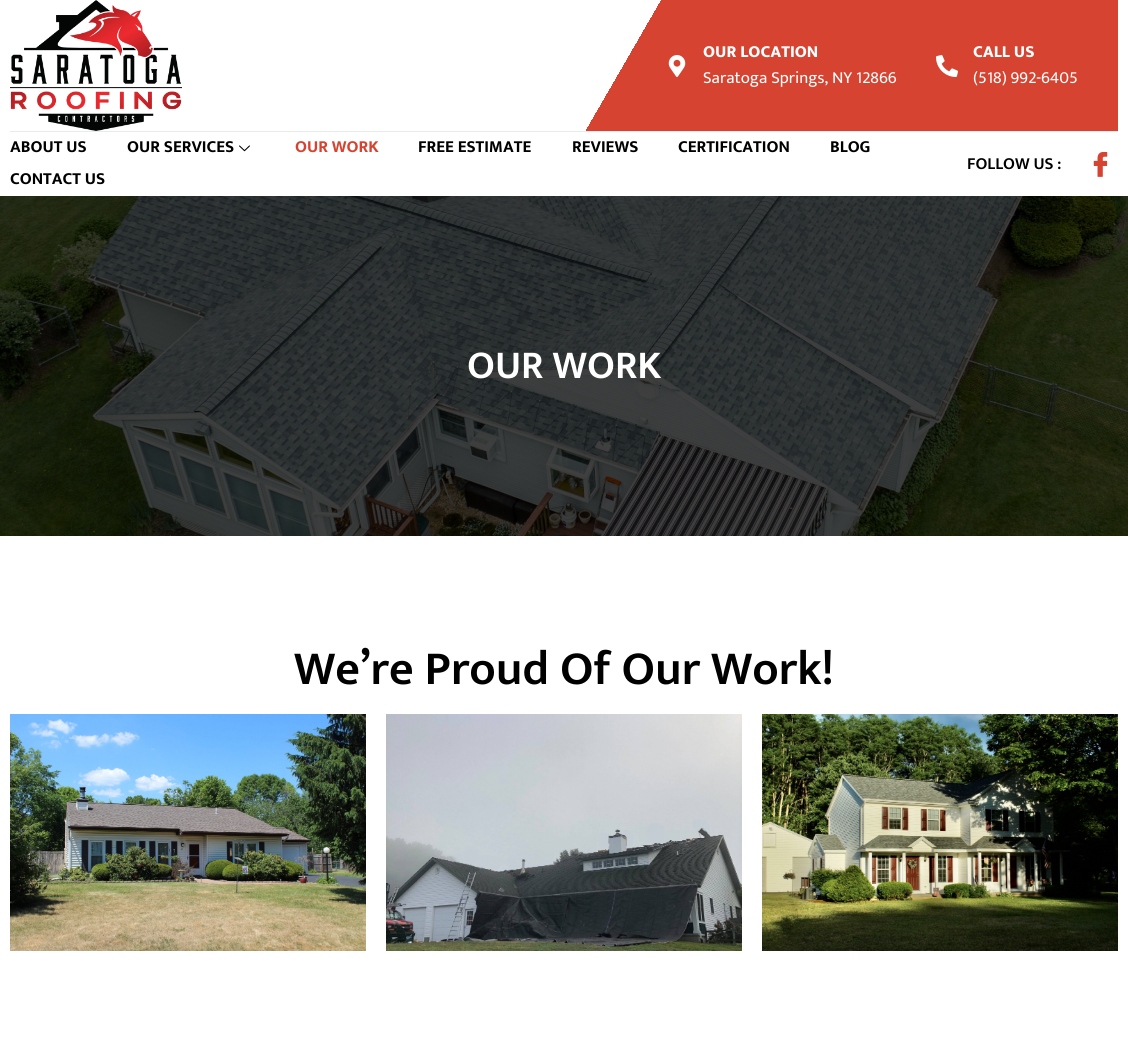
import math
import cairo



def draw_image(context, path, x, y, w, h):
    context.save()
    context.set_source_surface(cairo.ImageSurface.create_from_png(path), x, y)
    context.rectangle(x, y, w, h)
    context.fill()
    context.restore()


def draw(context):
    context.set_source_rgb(1, 1, 1)
    context.paint()
    gradient = cairo.LinearGradient(1008, 322, 120, -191)
    gradient.add_color_stop_rgba(0.45, 214 / 255, 67 / 255, 48 / 255, 1)
    gradient.add_color_stop_rgba(0.45, 1, 1, 1, 1)
    context.set_source(gradient)
    context.rectangle(586, 0, 532, 131)
    context.fill()
    draw_image(context, "images/1.png", 10, 0, 172, 131)
    draw_image(context, "images/2.png", 668, 55, 18, 22)
    draw_image(context, "images/3.png", 936, 55, 22, 22)
    context.set_source_rgb(231 / 255, 235 / 255, 240 / 255)
    context.rectangle(10, 131, 1108, 1)
    context.fill()
    draw_image(context, "images/4.png", 239, 145, 11, 7)
    draw_image(context, "images/5.png", 1093, 152, 15, 25)
    draw_image(context, "images/6.png", 0, 196, 1128, 340)
    draw_image(context, "images/7.png", 10, 714, 356, 237)
    draw_image(context, "images/8.png", 386, 714, 356, 237)
    draw_image(context, "images/9.png", 762, 714, 356, 237)
    context.select_font_face("Mukta ExtraBold")
    context.set_font_size(17)
    context.set_source_rgb(1, 1, 1)
    context.move_to(703, 57)
    context.show_text("OUR LOCATION")
    context.select_font_face("Mukta")
    context.move_to(703, 83)
    context.show_text("Saratoga Springs, NY 12866")
    context.select_font_face("Mukta ExtraBold")
    context.move_to(973, 57)
    context.show_text("CALL US")
    context.select_font_face("Mukta")
    context.move_to(973, 83)
    context.show_text("(518) 992-6405")
    context.select_font_face("Mukta", cairo.FontSlant.NORMAL, cairo.FontWeight.BOLD)
    context.set_source_rgb(0, 0, 0)
    context.move_to(10, 152)
    context.show_text("ABOUT US")
    context.move_to(127, 152)
    context.show_text("OUR SERVICES")
    context.set_source_rgb(214 / 255, 67 / 255, 48 / 255)
    context.move_to(295, 152)
    context.show_text("OUR WORK")
    context.set_source_rgb(0, 0, 0)
    context.move_to(418, 152)
    context.show_text("FREE ESTIMATE")
    context.move_to(572, 152)
    context.show_text("REVIEWS")
    context.move_to(678, 152)
    context.show_text("CERTIFICATION")
    context.move_to(830, 152)
    context.show_text("BLOG")
    context.move_to(10, 184)
    context.show_text("CONTACT US")
    context.select_font_face("Mukta SemiBold")
    context.move_to(967, 169)
    context.show_text("FOLLOW US :")
    context.set_font_size(40)
    context.set_source_rgb(1, 1, 1)
    context.move_to(467, 378)
    context.show_text("OUR WORK")
    context.set_font_size(48)
    context.set_source_rgb(0, 0, 0)
    context.move_to(294, 684)
    context.show_text("We’re Proud Of Our Work!")


surface = cairo.ImageSurface(cairo.Format.RGB24, 1128, 1040)
context = cairo.Context(surface)
options = cairo.FontOptions()
options.set_hint_metrics(cairo.HintMetrics.OFF)
options.set_hint_style(cairo.HintStyle.NONE)
context.set_font_options(options)
context.set_miter_limit(4)
draw(context)
surface.write_to_png("out.png")
